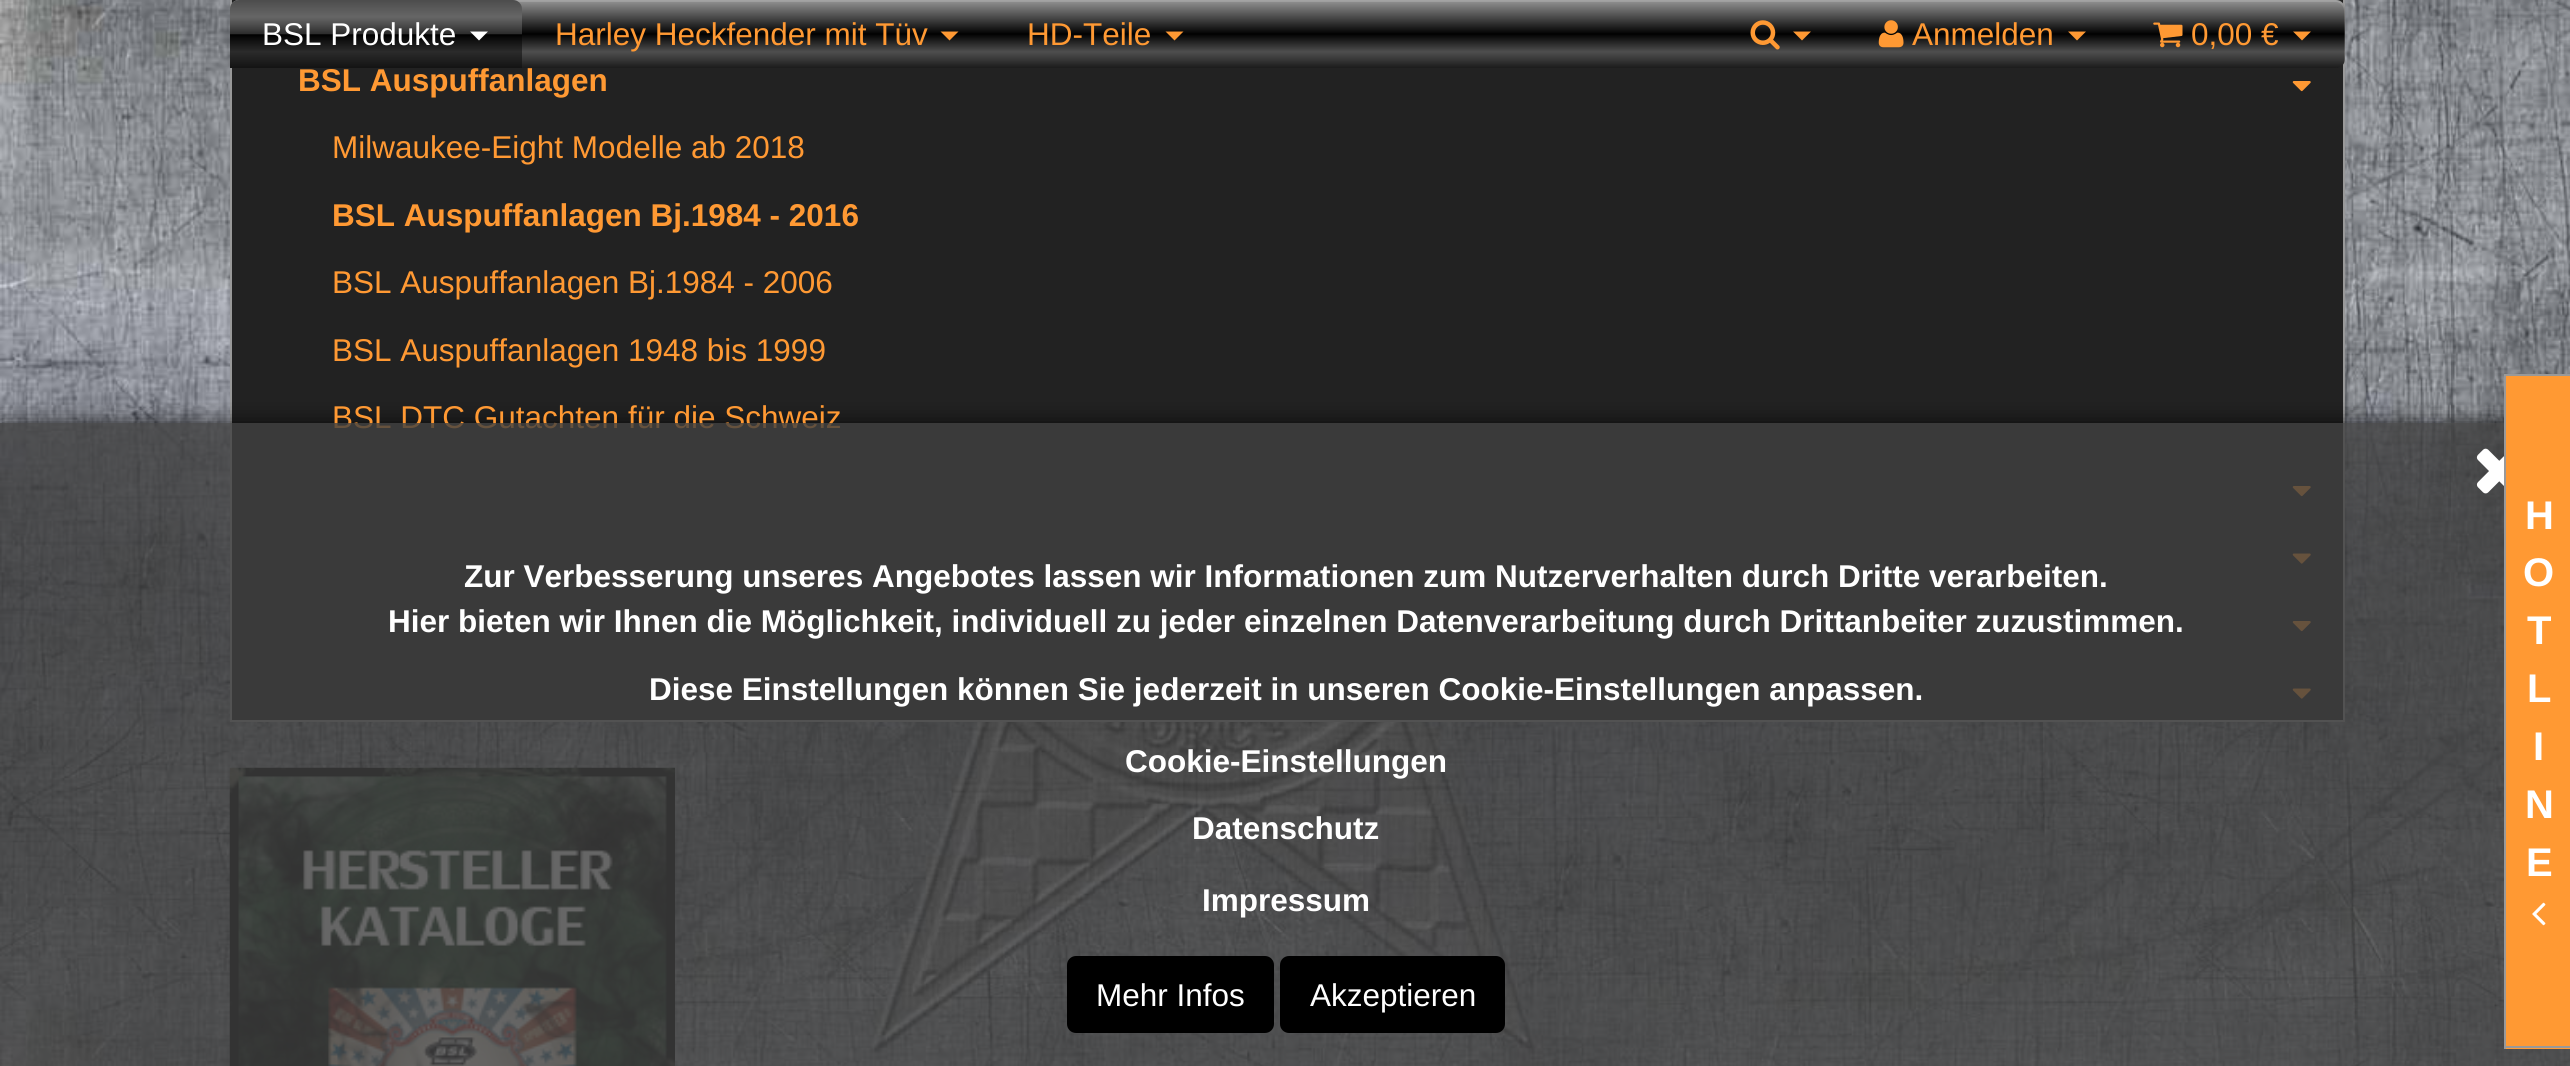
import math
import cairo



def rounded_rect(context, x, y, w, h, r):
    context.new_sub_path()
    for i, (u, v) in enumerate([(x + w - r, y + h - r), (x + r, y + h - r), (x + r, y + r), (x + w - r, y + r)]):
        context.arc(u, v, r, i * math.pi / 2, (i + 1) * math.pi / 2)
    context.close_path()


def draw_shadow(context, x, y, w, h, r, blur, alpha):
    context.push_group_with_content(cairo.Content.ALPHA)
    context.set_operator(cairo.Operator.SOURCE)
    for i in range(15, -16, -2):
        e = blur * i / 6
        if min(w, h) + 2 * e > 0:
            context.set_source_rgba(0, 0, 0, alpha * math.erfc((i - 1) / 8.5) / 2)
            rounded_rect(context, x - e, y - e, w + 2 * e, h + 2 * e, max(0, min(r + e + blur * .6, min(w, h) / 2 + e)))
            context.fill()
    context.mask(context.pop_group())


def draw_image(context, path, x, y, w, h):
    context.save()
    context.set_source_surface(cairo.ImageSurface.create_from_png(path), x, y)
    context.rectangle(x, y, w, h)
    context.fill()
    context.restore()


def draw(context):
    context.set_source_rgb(1, 1, 1)
    context.paint()
    draw_image(context, "images/1.png", 0, 0, 2570, 1066)
    context.set_source_rgb(0, 0, 0)
    draw_shadow(context, 230, -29, 2115, 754, 23, 2, 0.05)
    context.set_source_rgb(34 / 255, 34 / 255, 34 / 255)
    context.rectangle(231, -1, 2113, 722)
    context.fill_preserve()
    context.set_source_rgb(153 / 255, 153 / 255, 153 / 255)
    context.stroke()
    gradient = cairo.LinearGradient(1287, 0, 1287, 68)
    gradient.add_color_stop_rgba(0, 149 / 255, 149 / 255, 149 / 255, 1)
    gradient.add_color_stop_rgba(0.46, 13 / 255, 13 / 255, 13 / 255, 1)
    gradient.add_color_stop_rgba(0.5, 1 / 255, 1 / 255, 1 / 255, 1)
    gradient.add_color_stop_rgba(0.53, 10 / 255, 10 / 255, 10 / 255, 1)
    gradient.add_color_stop_rgba(0.76, 78 / 255, 78 / 255, 78 / 255, 1)
    gradient.add_color_stop_rgba(0.87, 56 / 255, 56 / 255, 56 / 255, 1)
    gradient.add_color_stop_rgba(1, 27 / 255, 27 / 255, 27 / 255, 1)
    context.set_source(gradient)
    rounded_rect(context, 230, 0, 2115, 68, 9)
    context.fill()
    context.set_source_rgba(1, 1, 1, 0.15)
    context.new_path()
    context.move_to(238, 2)
    context.line_to(2336, 2)
    context.curve_to(2340, 2, 2344, 6, 2344, 11)
    context.line_to(2344, 61)
    context.line_to(2344, 64)
    context.curve_to(2344, 63, 2345, 61, 2345, 59)
    context.line_to(2345, 9)
    context.curve_to(2345, 4, 2341, 0, 2336, 0)
    context.line_to(239, 0)
    context.curve_to(234, 0, 230, 4, 230, 9)
    context.line_to(230, 11)
    context.curve_to(230, 6, 234, 2, 238, 2)
    context.close_path()
    context.fill()
    gradient = cairo.LinearGradient(376, 0, 376, 68)
    gradient.add_color_stop_rgba(0, 76 / 255, 76 / 255, 76 / 255, 1)
    gradient.add_color_stop_rgba(0.12, 89 / 255, 89 / 255, 89 / 255, 1)
    gradient.add_color_stop_rgba(0.25, 102 / 255, 102 / 255, 102 / 255, 1)
    gradient.add_color_stop_rgba(0.39, 71 / 255, 71 / 255, 71 / 255, 1)
    gradient.add_color_stop_rgba(0.5, 44 / 255, 44 / 255, 44 / 255, 1)
    gradient.add_color_stop_rgba(0.51, 0, 0, 0, 1)
    gradient.add_color_stop_rgba(0.6, 17 / 255, 17 / 255, 17 / 255, 1)
    gradient.add_color_stop_rgba(0.76, 43 / 255, 43 / 255, 43 / 255, 1)
    gradient.add_color_stop_rgba(0.91, 28 / 255, 28 / 255, 28 / 255, 1)
    gradient.add_color_stop_rgba(1, 19 / 255, 19 / 255, 19 / 255, 1)
    context.set_source(gradient)
    context.new_path()
    context.move_to(239, 0)
    context.line_to(513, 0)
    context.curve_to(518, 0, 522, 4, 522, 9)
    context.line_to(522, 68)
    context.line_to(230, 68)
    context.line_to(230, 9)
    context.curve_to(230, 4, 234, 0, 239, 0)
    context.close_path()
    context.fill()
    context.set_source_rgb(1, 1, 1)
    context.new_path()
    context.move_to(470, 31.5)
    context.line_to(488, 31.5)
    context.line_to(479, 40.5)
    context.close_path()
    context.fill()
    context.set_source_rgb(1, 153 / 255, 51 / 255)
    context.new_path()
    context.move_to(940.5, 31.5)
    context.line_to(958.5, 31.5)
    context.line_to(949.5, 40.5)
    context.close_path()
    context.fill()
    context.new_path()
    context.move_to(1165.5, 31.5)
    context.line_to(1183.5, 31.5)
    context.line_to(1174.5, 40.5)
    context.close_path()
    context.fill()
    draw_image(context, "images/2.png", 1750, 20, 30, 30)
    context.new_path()
    context.move_to(1793, 31.5)
    context.line_to(1811, 31.5)
    context.line_to(1802, 40.5)
    context.close_path()
    context.fill()
    draw_image(context, "images/3.png", 1878, 20, 26, 28)
    context.new_path()
    context.move_to(2068, 31.5)
    context.line_to(2086, 31.5)
    context.line_to(2077, 40.5)
    context.close_path()
    context.fill()
    draw_image(context, "images/4.png", 2153, 22, 30, 26)
    context.new_path()
    context.move_to(2293, 31.5)
    context.line_to(2311, 31.5)
    context.line_to(2302, 40.5)
    context.close_path()
    context.fill()
    context.set_source_rgb(153 / 255, 153 / 255, 153 / 255)
    context.rectangle(2504, 374, 66, 2)
    context.fill()
    draw_image(context, "images/6.png", 2292, 81, 19, 11)
    draw_image(context, "images/6.png", 2292, 486, 19, 11)
    draw_image(context, "images/7.png", 2292, 553, 19, 11)
    draw_image(context, "images/6.png", 2292, 621, 19, 11)
    draw_image(context, "images/7.png", 2292, 688, 19, 11)
    draw_image(context, "images/8.png", 229, 767, 446, 299)
    context.save()
    context.rectangle(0, 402, 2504, 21)
    context.clip()
    context.set_source_rgb(0, 0, 0)
    draw_shadow(context, 0, 423, 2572, 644, 0, 11, 0.75)
    context.restore()
    context.select_font_face("Liberation Sans")
    context.set_font_size(31.5)
    context.set_source_rgb(1, 1, 1)
    context.move_to(262, 45)
    context.show_text("BSL Produkte")
    context.set_source_rgb(1, 153 / 255, 51 / 255)
    context.move_to(555, 45)
    context.show_text("Harley Heckfender mit Tüv")
    context.move_to(1027, 45)
    context.show_text("HD-Teile")
    context.move_to(1912, 45)
    context.show_text("Anmelden")
    context.move_to(2191, 45)
    context.show_text("0,00 €")
    context.select_font_face("Liberation Sans", cairo.FontSlant.NORMAL, cairo.FontWeight.BOLD)
    context.move_to(298, 91)
    context.show_text("BSL Auspuffanlagen")
    context.select_font_face("Liberation Sans")
    context.move_to(332, 158)
    context.show_text("Milwaukee-Eight Modelle ab 2018")
    context.select_font_face("Liberation Sans", cairo.FontSlant.NORMAL, cairo.FontWeight.BOLD)
    context.move_to(332, 226)
    context.show_text("BSL Auspuffanlagen Bj.1984 - 2016")
    context.select_font_face("Liberation Sans")
    context.move_to(332, 293)
    context.show_text("BSL Auspuffanlagen Bj.1984 - 2006")
    context.move_to(332, 361)
    context.show_text("BSL Auspuffanlagen 1948 bis 1999")
    context.move_to(332, 428)
    context.show_text("BSL DTC Gutachten für die Schweiz")
    context.set_source_rgba(64 / 255, 64 / 255, 64 / 255, 0.8)
    context.rectangle(0, 423, 2570, 643)
    context.fill()
    context.set_source_rgb(1, 153 / 255, 51 / 255)
    context.rectangle(2506, 376, 64, 673)
    context.fill()
    draw_image(context, "images/5.png", 2532, 902, 14, 24)
    context.select_font_face("Liberation Sans", cairo.FontSlant.NORMAL, cairo.FontWeight.BOLD)
    context.set_font_size(40)
    context.set_source_rgb(1, 1, 1)
    context.move_to(2526, 876)
    context.show_text("E")
    context.move_to(2525, 818)
    context.show_text("N")
    context.move_to(2533, 760)
    context.show_text("I")
    context.move_to(2527, 702)
    context.show_text("L")
    context.move_to(2527, 644)
    context.show_text("T")
    context.move_to(2523, 586)
    context.show_text("O")
    context.move_to(2525, 529)
    context.show_text("H")
    context.set_source_rgb(153 / 255, 153 / 255, 153 / 255)
    context.rectangle(2504, 1046, 66, 2)
    context.fill()
    context.rectangle(2504, 374, 2, 675)
    context.fill()
    draw_image(context, "images/9.png", 2476, 448, 28, 46)
    context.set_font_size(31.5)
    context.set_source_rgb(1, 1, 1)
    context.move_to(464, 587)
    context.show_text("Zur Verbesserung unseres Angebotes lassen wir Informationen zum Nutzerverhalten durch Dritte verarbeiten.")
    context.move_to(388, 632)
    context.show_text("Hier bieten wir Ihnen die Möglichkeit, individuell zu jeder einzelnen Datenverarbeitung durch Drittanbeiter zuzustimmen.")
    context.move_to(649, 700)
    context.show_text("Diese Einstellungen können Sie jederzeit in unseren Cookie-Einstellungen anpassen.")
    context.move_to(1125, 772)
    context.show_text("Cookie-Einstellungen")
    context.move_to(1192, 839)
    context.show_text("Datenschutz")
    context.move_to(1202, 911)
    context.show_text("Impressum")
    context.set_source_rgb(0, 0, 0)
    rounded_rect(context, 1067, 956, 207, 77, 9)
    context.fill()
    context.select_font_face("Liberation Sans")
    context.set_source_rgb(1, 1, 1)
    context.move_to(1096, 1006)
    context.show_text("Mehr Infos")
    context.set_source_rgb(0, 0, 0)
    rounded_rect(context, 1280, 956, 225, 77, 9)
    context.fill()
    context.set_source_rgb(1, 1, 1)
    context.move_to(1310, 1006)
    context.show_text("Akzeptieren")


surface = cairo.ImageSurface(cairo.Format.RGB24, 2570, 1066)
context = cairo.Context(surface)
options = cairo.FontOptions()
options.set_hint_metrics(cairo.HintMetrics.OFF)
options.set_hint_style(cairo.HintStyle.NONE)
context.set_font_options(options)
context.set_miter_limit(4)
draw(context)
surface.write_to_png("out.png")
